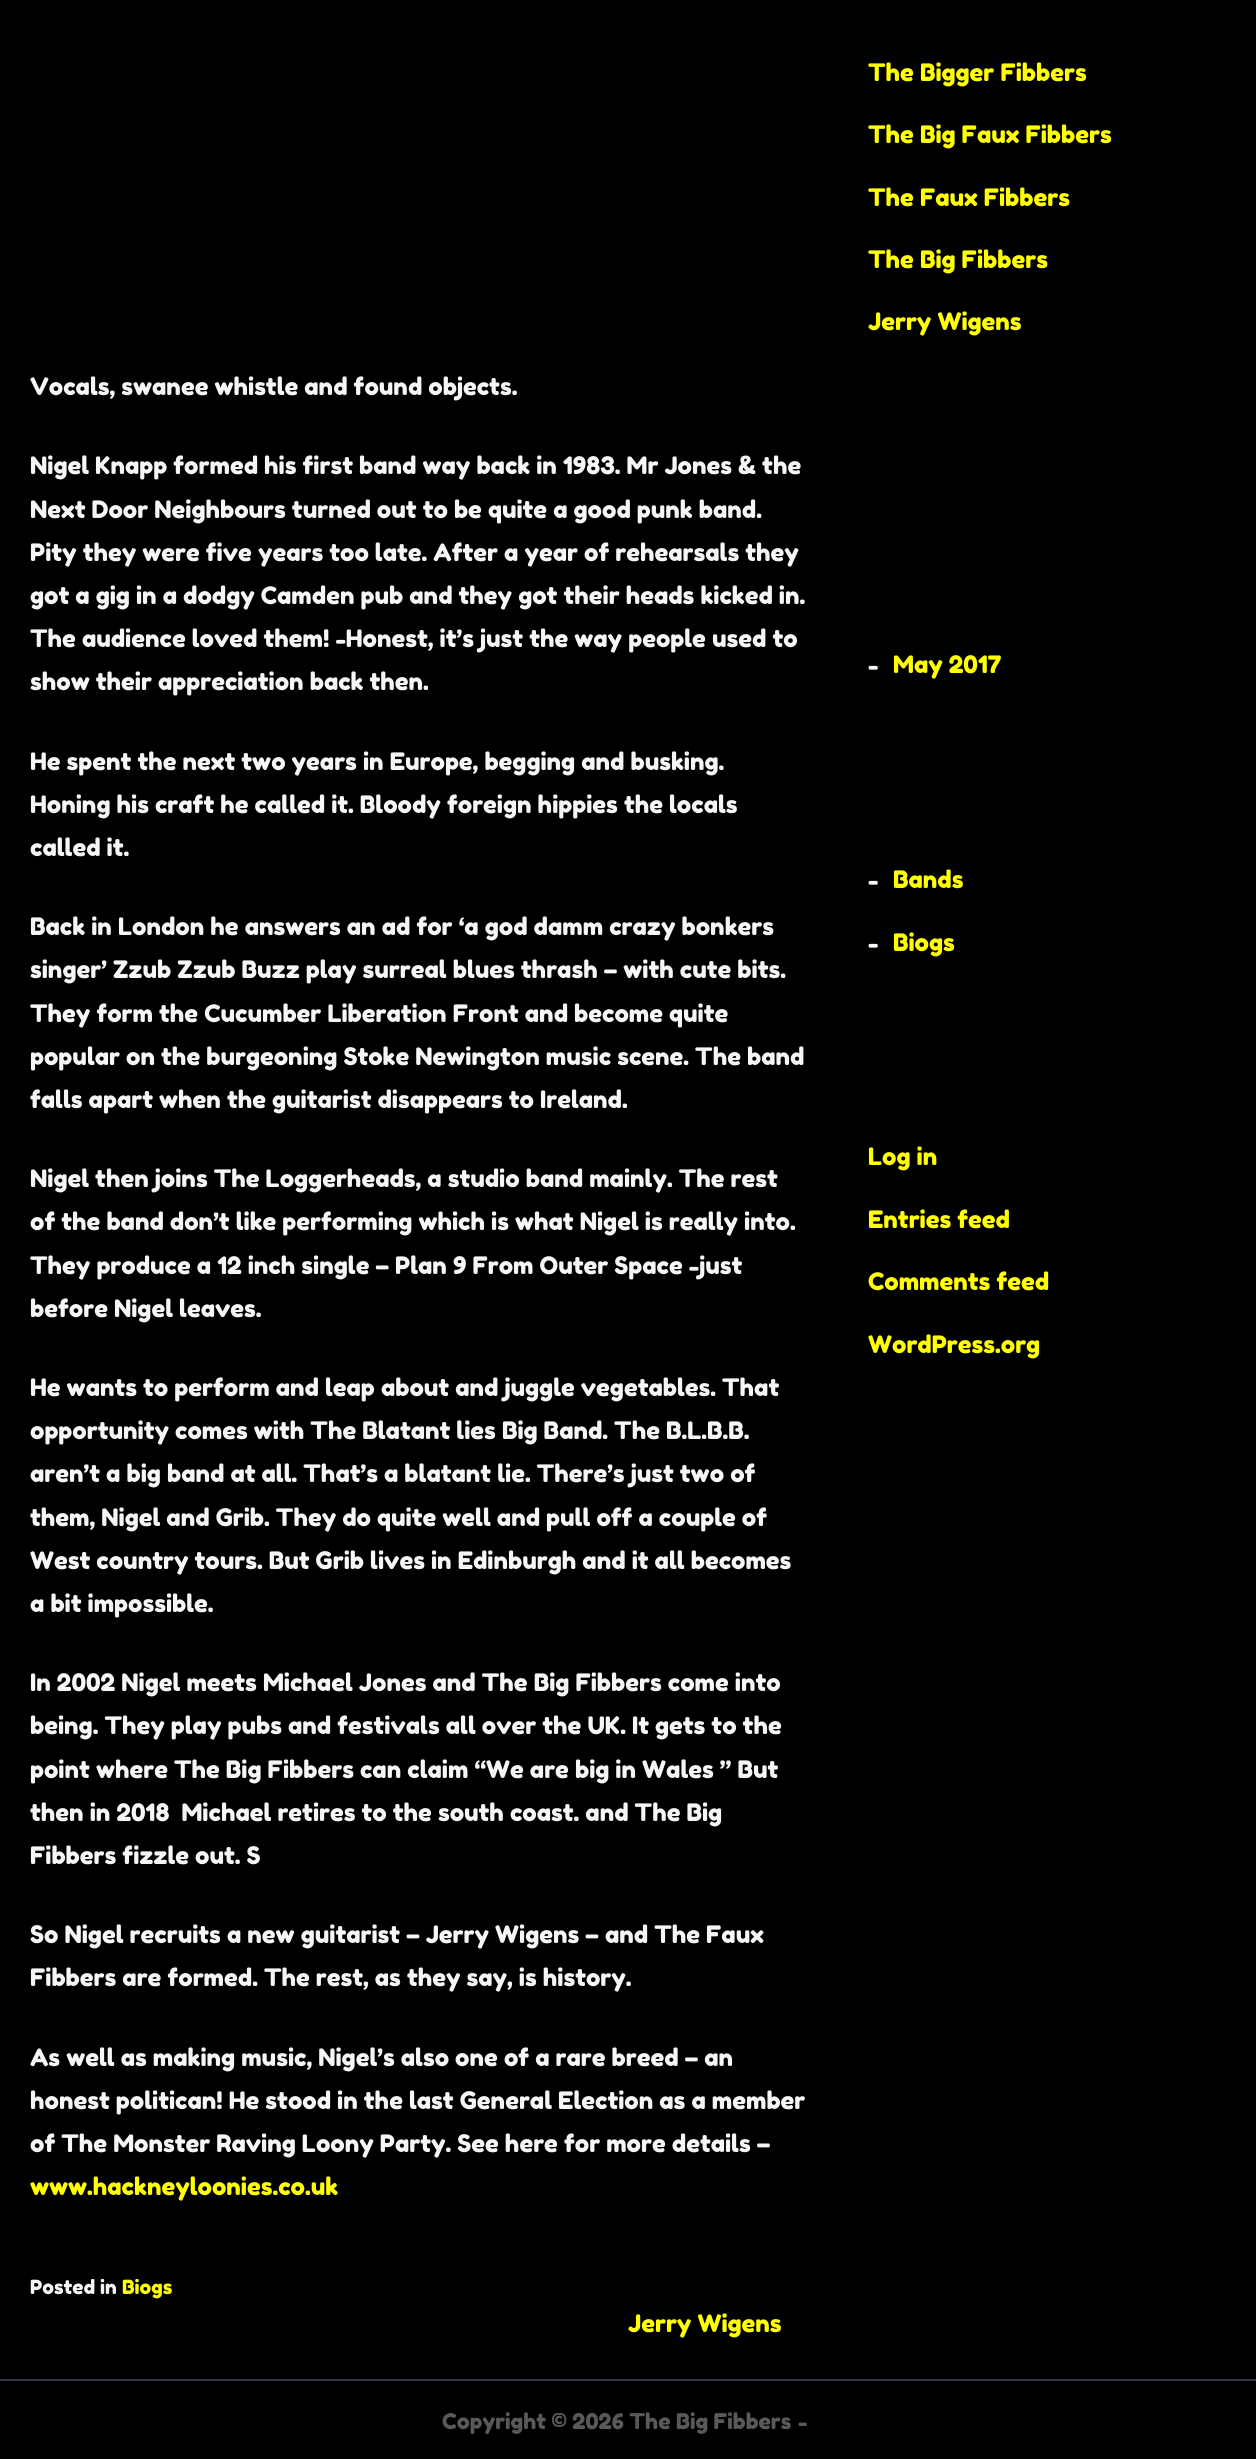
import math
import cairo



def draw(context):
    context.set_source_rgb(0, 0, 0)
    context.paint()
    context.set_source_rgb(51 / 255, 54 / 255, 69 / 255)
    context.rectangle(0, 2379, 1256, 2)
    context.fill()
    context.select_font_face("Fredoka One")
    context.set_font_size(24)
    context.set_source_rgb(246 / 255, 246 / 255, 246 / 255)
    context.move_to(30, 395)
    context.show_text("Vocals, swanee whistle and found objects.")
    context.move_to(30, 474)
    context.show_text("Nigel Knapp formed his first band way back in 1983. Mr Jones & the")
    context.move_to(30, 518)
    context.show_text("Next Door Neighbours turned out to be quite a good punk band.")
    context.move_to(30, 561)
    context.show_text("Pity they were five years too late. After a year of rehearsals they")
    context.move_to(30, 604)
    context.show_text("got a gig in a dodgy Camden pub and they got their heads kicked in.")
    context.move_to(30, 647)
    context.show_text("The audience loved them! -Honest, it’s just the way people used to")
    context.move_to(30, 690)
    context.show_text("show their appreciation back then.")
    context.move_to(30, 770)
    context.show_text("He spent the next two years in Europe, begging and busking.")
    context.move_to(30, 813)
    context.show_text("Honing his craft he called it. Bloody foreign hippies the locals")
    context.move_to(30, 856)
    context.show_text("called it.")
    context.move_to(30, 935)
    context.show_text("Back in London he answers an ad for ‘a god damm crazy bonkers")
    context.move_to(30, 978)
    context.show_text("singer’ Zzub Zzub Buzz play surreal blues thrash – with cute bits.")
    context.move_to(30, 1022)
    context.show_text("They form the Cucumber Liberation Front and become quite")
    context.move_to(30, 1065)
    context.show_text("popular on the burgeoning Stoke Newington music scene. The band")
    context.move_to(30, 1108)
    context.show_text("falls apart when the guitarist disappears to Ireland.")
    context.move_to(30, 1187)
    context.show_text("Nigel then joins The Loggerheads, a studio band mainly. The rest")
    context.move_to(30, 1230)
    context.show_text("of the band don’t like performing which is what Nigel is really into.")
    context.move_to(30, 1274)
    context.show_text("They produce a 12 inch single – Plan 9 From Outer Space -just")
    context.move_to(30, 1317)
    context.show_text("before Nigel leaves.")
    context.move_to(30, 1396)
    context.show_text("He wants to perform and leap about and juggle vegetables. That")
    context.move_to(30, 1439)
    context.show_text("opportunity comes with The Blatant lies Big Band. The B.L.B.B.")
    context.move_to(30, 1482)
    context.show_text("aren’t a big band at all. That’s a blatant lie. There’s just two of")
    context.move_to(30, 1526)
    context.show_text("them, Nigel and Grib. They do quite well and pull off a couple of")
    context.move_to(30, 1569)
    context.show_text("West country tours. But Grib lives in Edinburgh and it all becomes")
    context.move_to(30, 1612)
    context.show_text("a bit impossible.")
    context.move_to(30, 1691)
    context.show_text("In 2002 Nigel meets Michael Jones and The Big Fibbers come into")
    context.move_to(30, 1734)
    context.show_text("being. They play pubs and festivals all over the UK. It gets to the")
    context.move_to(30, 1778)
    context.show_text("point where The Big Fibbers can claim “We are big in Wales ” But")
    context.move_to(30, 1821)
    context.show_text("then in 2018  Michael retires to the south coast. and The Big")
    context.move_to(30, 1864)
    context.show_text("Fibbers fizzle out. S")
    context.move_to(30, 1943)
    context.show_text("So Nigel recruits a new guitarist – Jerry Wigens – and The Faux")
    context.move_to(30, 1986)
    context.show_text("Fibbers are formed. The rest, as they say, is history.")
    context.move_to(30, 2066)
    context.show_text("As well as making music, Nigel’s also one of a rare breed – an")
    context.move_to(30, 2109)
    context.show_text("honest politican! He stood in the last General Election as a member")
    context.move_to(30, 2152)
    context.show_text("of The Monster Raving Loony Party. See here for more details –")
    context.set_source_rgb(1, 1, 0)
    context.move_to(30, 2195)
    context.show_text("www.hackneyloonies.co.uk")
    context.set_font_size(19.5)
    context.set_source_rgb(246 / 255, 246 / 255, 246 / 255)
    context.move_to(30, 2294)
    context.show_text("Posted in")
    context.set_source_rgb(1, 1, 0)
    context.move_to(122, 2294)
    context.show_text("Biogs")
    context.set_font_size(24)
    context.move_to(628, 2332)
    context.show_text("Jerry Wigens")
    context.move_to(868, 81)
    context.show_text("The Bigger Fibbers")
    context.move_to(868, 143)
    context.show_text("The Big Faux Fibbers")
    context.move_to(868, 206)
    context.show_text("The Faux Fibbers")
    context.move_to(868, 268)
    context.show_text("The Big Fibbers")
    context.move_to(868, 330)
    context.show_text("Jerry Wigens")
    context.set_source_rgb(246 / 255, 246 / 255, 246 / 255)
    context.move_to(868, 673)
    context.show_text("-")
    context.set_source_rgb(1, 1, 0)
    context.move_to(893, 673)
    context.show_text("May 2017")
    context.set_source_rgb(246 / 255, 246 / 255, 246 / 255)
    context.move_to(868, 888)
    context.show_text("-")
    context.set_source_rgb(1, 1, 0)
    context.move_to(893, 888)
    context.show_text("Bands")
    context.set_source_rgb(246 / 255, 246 / 255, 246 / 255)
    context.move_to(868, 951)
    context.show_text("-")
    context.set_source_rgb(1, 1, 0)
    context.move_to(893, 951)
    context.show_text("Biogs")
    context.move_to(868, 1165)
    context.show_text("Log in")
    context.move_to(868, 1228)
    context.show_text("Entries feed")
    context.move_to(868, 1290)
    context.show_text("Comments feed")
    context.move_to(868, 1353)
    context.show_text("WordPress.org")
    context.set_font_size(21.6)
    context.set_source_rgb(89 / 255, 89 / 255, 89 / 255)
    context.move_to(442, 2429)
    context.show_text("Copyright © 2026 The Big Fibbers")
    context.move_to(798, 2429)
    context.show_text("-")


surface = cairo.ImageSurface(cairo.Format.RGB24, 1256, 2459)
context = cairo.Context(surface)
options = cairo.FontOptions()
options.set_hint_metrics(cairo.HintMetrics.OFF)
options.set_hint_style(cairo.HintStyle.NONE)
context.set_font_options(options)
context.set_miter_limit(4)
draw(context)
surface.write_to_png("out.png")
